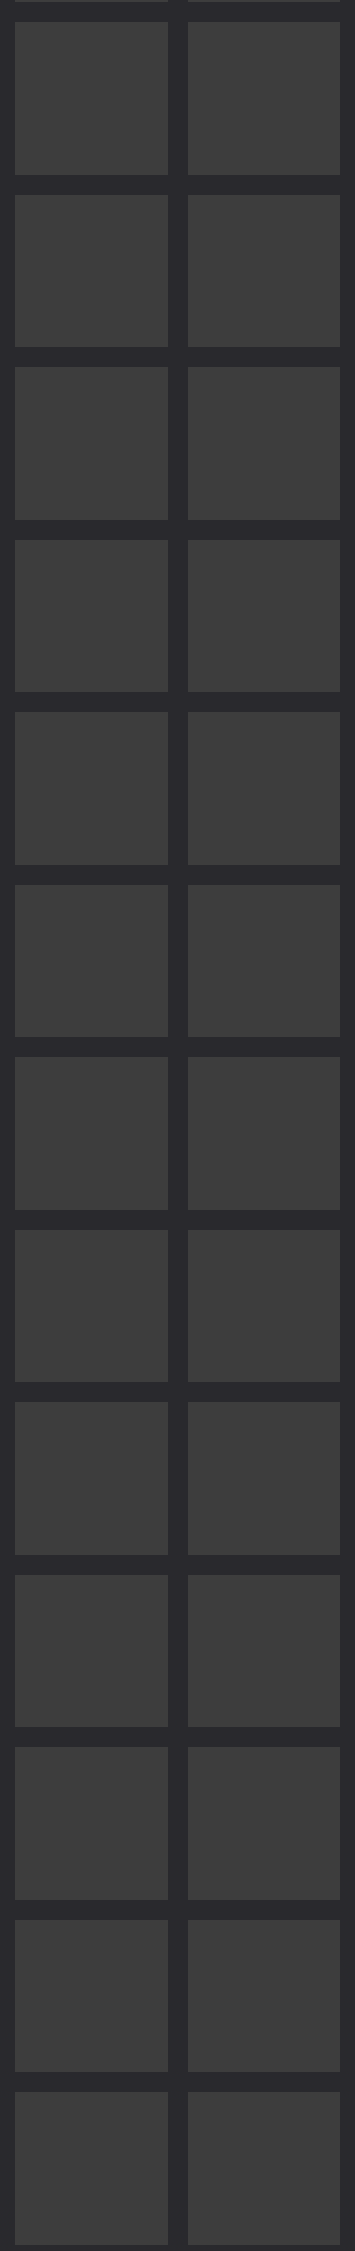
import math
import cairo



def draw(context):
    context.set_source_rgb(41 / 255, 41 / 255, 45 / 255)
    context.paint()
    context.set_source_rgb(61 / 255, 61 / 255, 61 / 255)
    context.rectangle(15, 0, 153, 2)
    context.fill()
    context.rectangle(188, 0, 152, 2)
    context.fill()
    context.rectangle(15, 22, 153, 153)
    context.fill()
    context.rectangle(188, 22, 152, 153)
    context.fill()
    context.rectangle(15, 195, 153, 152)
    context.fill()
    context.rectangle(188, 195, 152, 152)
    context.fill()
    context.rectangle(15, 367, 153, 153)
    context.fill()
    context.rectangle(188, 367, 152, 153)
    context.fill()
    context.rectangle(15, 540, 153, 152)
    context.fill()
    context.rectangle(188, 540, 152, 152)
    context.fill()
    context.rectangle(15, 712, 153, 153)
    context.fill()
    context.rectangle(188, 712, 152, 153)
    context.fill()
    context.rectangle(15, 885, 153, 152)
    context.fill()
    context.rectangle(188, 885, 152, 152)
    context.fill()
    context.rectangle(15, 1057, 153, 153)
    context.fill()
    context.rectangle(188, 1057, 152, 153)
    context.fill()
    context.rectangle(15, 1230, 153, 152)
    context.fill()
    context.rectangle(188, 1230, 152, 152)
    context.fill()
    context.rectangle(15, 1402, 153, 153)
    context.fill()
    context.rectangle(188, 1402, 152, 153)
    context.fill()
    context.rectangle(15, 1575, 153, 152)
    context.fill()
    context.rectangle(188, 1575, 152, 152)
    context.fill()
    context.rectangle(15, 1747, 153, 153)
    context.fill()
    context.rectangle(188, 1747, 152, 153)
    context.fill()
    context.rectangle(15, 1920, 153, 152)
    context.fill()
    context.rectangle(188, 1920, 152, 152)
    context.fill()
    context.rectangle(15, 2092, 153, 153)
    context.fill()
    context.rectangle(188, 2092, 152, 153)
    context.fill()


surface = cairo.ImageSurface(cairo.Format.RGB24, 355, 2251)
context = cairo.Context(surface)
options = cairo.FontOptions()
options.set_hint_metrics(cairo.HintMetrics.OFF)
options.set_hint_style(cairo.HintStyle.NONE)
context.set_font_options(options)
context.set_miter_limit(4)
draw(context)
surface.write_to_png("out.png")
